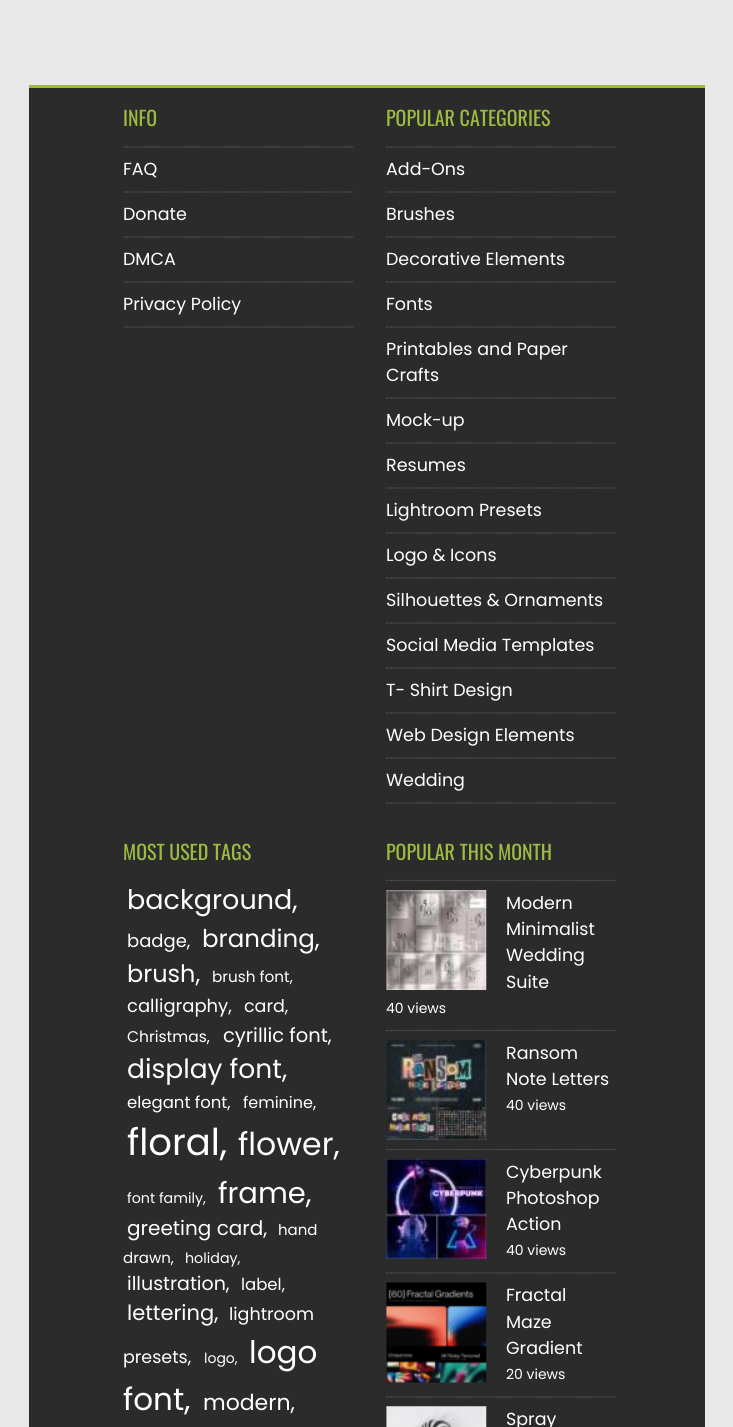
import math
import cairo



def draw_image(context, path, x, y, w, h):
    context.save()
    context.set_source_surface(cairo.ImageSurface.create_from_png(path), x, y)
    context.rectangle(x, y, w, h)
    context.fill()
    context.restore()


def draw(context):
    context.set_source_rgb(232 / 255, 232 / 255, 232 / 255)
    context.paint()
    context.set_source_rgb(43 / 255, 43 / 255, 43 / 255)
    context.rectangle(29, 88, 676, 1339)
    context.fill()
    context.set_source_rgb(157 / 255, 187 / 255, 65 / 255)
    context.rectangle(29, 85, 676, 3)
    context.fill()
    context.new_path()
    context.move_to(124, 147)
    context.line_to(354, 147)
    context.set_source_rgb(91 / 255, 91 / 255, 91 / 255)
    context.set_line_width(1.2)
    context.set_dash([1.25, 1.25])
    context.stroke()
    context.new_path()
    context.move_to(124, 192)
    context.line_to(354, 192)
    context.stroke()
    context.new_path()
    context.move_to(124, 237)
    context.line_to(354, 237)
    context.stroke()
    context.new_path()
    context.move_to(124, 282)
    context.line_to(354, 282)
    context.stroke()
    context.new_path()
    context.move_to(124, 327)
    context.line_to(354, 327)
    context.stroke()
    context.new_path()
    context.move_to(386, 147)
    context.line_to(616, 147)
    context.stroke()
    context.new_path()
    context.move_to(386, 192)
    context.line_to(616, 192)
    context.stroke()
    context.new_path()
    context.move_to(386, 237)
    context.line_to(616, 237)
    context.stroke()
    context.new_path()
    context.move_to(386, 282)
    context.line_to(616, 282)
    context.stroke()
    context.new_path()
    context.move_to(386, 327)
    context.line_to(616, 327)
    context.stroke()
    context.new_path()
    context.move_to(386, 398)
    context.line_to(616, 398)
    context.stroke()
    context.new_path()
    context.move_to(386, 443)
    context.line_to(616, 443)
    context.stroke()
    context.new_path()
    context.move_to(386, 488)
    context.line_to(616, 488)
    context.stroke()
    context.new_path()
    context.move_to(386, 533)
    context.line_to(616, 533)
    context.stroke()
    context.new_path()
    context.move_to(386, 578)
    context.line_to(616, 578)
    context.stroke()
    context.new_path()
    context.move_to(386, 623)
    context.line_to(616, 623)
    context.stroke()
    context.new_path()
    context.move_to(386, 668)
    context.line_to(616, 668)
    context.stroke()
    context.new_path()
    context.move_to(386, 713)
    context.line_to(616, 713)
    context.stroke()
    context.new_path()
    context.move_to(386, 758)
    context.line_to(616, 758)
    context.stroke()
    context.new_path()
    context.move_to(386, 803)
    context.line_to(616, 803)
    context.stroke()
    context.new_path()
    context.move_to(386, 880.5)
    context.line_to(616, 880.5)
    context.stroke()
    draw_image(context, "images/1.png", 386, 890, 101, 100)
    context.new_path()
    context.move_to(386, 1030.5)
    context.line_to(616, 1030.5)
    context.stroke()
    draw_image(context, "images/2.png", 386, 1040, 101, 100)
    context.new_path()
    context.move_to(386, 1149.5)
    context.line_to(616, 1149.5)
    context.stroke()
    draw_image(context, "images/3.png", 386, 1158, 101, 101)
    context.new_path()
    context.move_to(386, 1273)
    context.line_to(616, 1273)
    context.stroke()
    draw_image(context, "images/4.png", 386, 1282, 101, 101)
    context.new_path()
    context.move_to(386, 1397)
    context.line_to(616, 1397)
    context.stroke()
    draw_image(context, "images/5.png", 386, 1406, 101, 21)
    context.select_font_face("Oswald")
    context.set_font_size(20)
    context.set_source_rgb(157 / 255, 187 / 255, 65 / 255)
    context.move_to(123, 126)
    context.show_text("INFO")
    context.select_font_face("Poppins")
    context.set_font_size(17.5)
    context.set_source_rgb(1, 1, 1)
    context.move_to(123, 175)
    context.show_text("FAQ")
    context.move_to(123, 220)
    context.show_text("Donate")
    context.move_to(123, 265)
    context.show_text("DMCA")
    context.move_to(123, 310)
    context.show_text("Privacy Policy")
    context.select_font_face("Oswald")
    context.set_font_size(20)
    context.set_source_rgb(157 / 255, 187 / 255, 65 / 255)
    context.move_to(386, 126)
    context.show_text("POPULAR CATEGORIES")
    context.select_font_face("Poppins")
    context.set_font_size(17.5)
    context.set_source_rgb(1, 1, 1)
    context.move_to(386, 175)
    context.show_text("Add-Ons")
    context.move_to(386, 220)
    context.show_text("Brushes")
    context.move_to(386, 265)
    context.show_text("Decorative Elements")
    context.move_to(386, 310)
    context.show_text("Fonts")
    context.move_to(386, 355)
    context.show_text("Printables and Paper")
    context.move_to(386, 381)
    context.show_text("Crafts")
    context.move_to(386, 426)
    context.show_text("Mock-up")
    context.move_to(386, 471)
    context.show_text("Resumes")
    context.move_to(386, 516)
    context.show_text("Lightroom Presets")
    context.move_to(386, 561)
    context.show_text("Logo & Icons")
    context.move_to(386, 606)
    context.show_text("Silhouettes & Ornaments")
    context.move_to(386, 651)
    context.show_text("Social Media Templates")
    context.move_to(386, 696)
    context.show_text("T- Shirt Design")
    context.move_to(386, 741)
    context.show_text("Web Design Elements")
    context.move_to(386, 786)
    context.show_text("Wedding")
    context.select_font_face("Oswald")
    context.set_font_size(20)
    context.set_source_rgb(157 / 255, 187 / 255, 65 / 255)
    context.move_to(123, 860)
    context.show_text("MOST USED TAGS")
    context.select_font_face("Poppins")
    context.set_font_size(27)
    context.set_source_rgb(1, 1, 1)
    context.move_to(127, 909)
    context.show_text("background,")
    context.set_font_size(18)
    context.move_to(127, 947)
    context.show_text("badge,")
    context.set_font_size(24.5)
    context.move_to(202, 947)
    context.show_text("branding,")
    context.set_font_size(24)
    context.move_to(127, 982)
    context.show_text("brush,")
    context.set_font_size(15.25)
    context.move_to(212, 982)
    context.show_text("brush font,")
    context.set_font_size(18)
    context.move_to(127, 1012)
    context.show_text("calligraphy,")
    context.set_font_size(17.5)
    context.move_to(244, 1012)
    context.show_text("card,")
    context.set_font_size(15.5)
    context.move_to(127, 1042)
    context.show_text("Christmas,")
    context.set_font_size(19.5)
    context.move_to(223, 1042)
    context.show_text("cyrillic font,")
    context.set_font_size(26.5)
    context.move_to(127, 1078)
    context.show_text("display font,")
    context.set_font_size(16.5)
    context.move_to(127, 1108)
    context.show_text("elegant font,")
    context.set_font_size(16)
    context.move_to(243, 1108)
    context.show_text("feminine,")
    context.set_font_size(37)
    context.move_to(127, 1155)
    context.show_text("floral,")
    context.set_font_size(31.5)
    context.move_to(238, 1155)
    context.show_text("flower,")
    context.set_font_size(14.25)
    context.move_to(127, 1203)
    context.show_text("font family,")
    context.set_font_size(29)
    context.move_to(218, 1203)
    context.show_text("frame,")
    context.set_font_size(20)
    context.move_to(127, 1235)
    context.show_text("greeting card,")
    context.set_font_size(15)
    context.move_to(278, 1235)
    context.show_text("hand")
    context.move_to(123, 1263)
    context.show_text("drawn,")
    context.set_font_size(14.25)
    context.move_to(185, 1263)
    context.show_text("holiday,")
    context.set_font_size(19)
    context.move_to(127, 1290)
    context.show_text("illustration,")
    context.set_font_size(16.5)
    context.move_to(241, 1290)
    context.show_text("label,")
    context.set_font_size(21)
    context.move_to(127, 1320)
    context.show_text("lettering,")
    context.set_font_size(17.5)
    context.move_to(229, 1320)
    context.show_text("lightroom")
    context.move_to(123, 1363)
    context.show_text("presets,")
    context.set_font_size(14)
    context.move_to(204, 1363)
    context.show_text("logo,")
    context.set_font_size(31)
    context.move_to(249, 1363)
    context.show_text("logo")
    context.move_to(123, 1410)
    context.show_text("font,")
    context.set_font_size(22)
    context.move_to(203, 1410)
    context.show_text("modern,")
    context.select_font_face("Oswald")
    context.set_font_size(20)
    context.set_source_rgb(157 / 255, 187 / 255, 65 / 255)
    context.move_to(386, 860)
    context.show_text("POPULAR THIS MONTH")
    context.select_font_face("Poppins")
    context.set_font_size(17.5)
    context.set_source_rgb(1, 1, 1)
    context.move_to(506, 909)
    context.show_text("Modern")
    context.move_to(506, 935)
    context.show_text("Minimalist")
    context.move_to(506, 961)
    context.show_text("Wedding")
    context.move_to(506, 988)
    context.show_text("Suite")
    context.set_font_size(14)
    context.move_to(386, 1013)
    context.show_text("40 views")
    context.set_font_size(17.5)
    context.move_to(506, 1059)
    context.show_text("Ransom")
    context.move_to(506, 1085)
    context.show_text("Note Letters")
    context.set_font_size(14)
    context.move_to(506, 1110)
    context.show_text("40 views")
    context.set_font_size(17.5)
    context.move_to(506, 1178)
    context.show_text("Cyberpunk")
    context.move_to(506, 1204)
    context.show_text("Photoshop")
    context.move_to(506, 1230)
    context.show_text("Action")
    context.set_font_size(14)
    context.move_to(506, 1255)
    context.show_text("40 views")
    context.set_font_size(17.5)
    context.move_to(506, 1301)
    context.show_text("Fractal")
    context.move_to(506, 1328)
    context.show_text("Maze")
    context.move_to(506, 1354)
    context.show_text("Gradient")
    context.set_font_size(14)
    context.move_to(506, 1379)
    context.show_text("20 views")
    context.set_font_size(17.5)
    context.move_to(506, 1425)
    context.show_text("Spray")


surface = cairo.ImageSurface(cairo.Format.RGB24, 733, 1427)
context = cairo.Context(surface)
options = cairo.FontOptions()
options.set_hint_metrics(cairo.HintMetrics.OFF)
options.set_hint_style(cairo.HintStyle.NONE)
context.set_font_options(options)
context.set_miter_limit(4)
draw(context)
surface.write_to_png("out.png")
